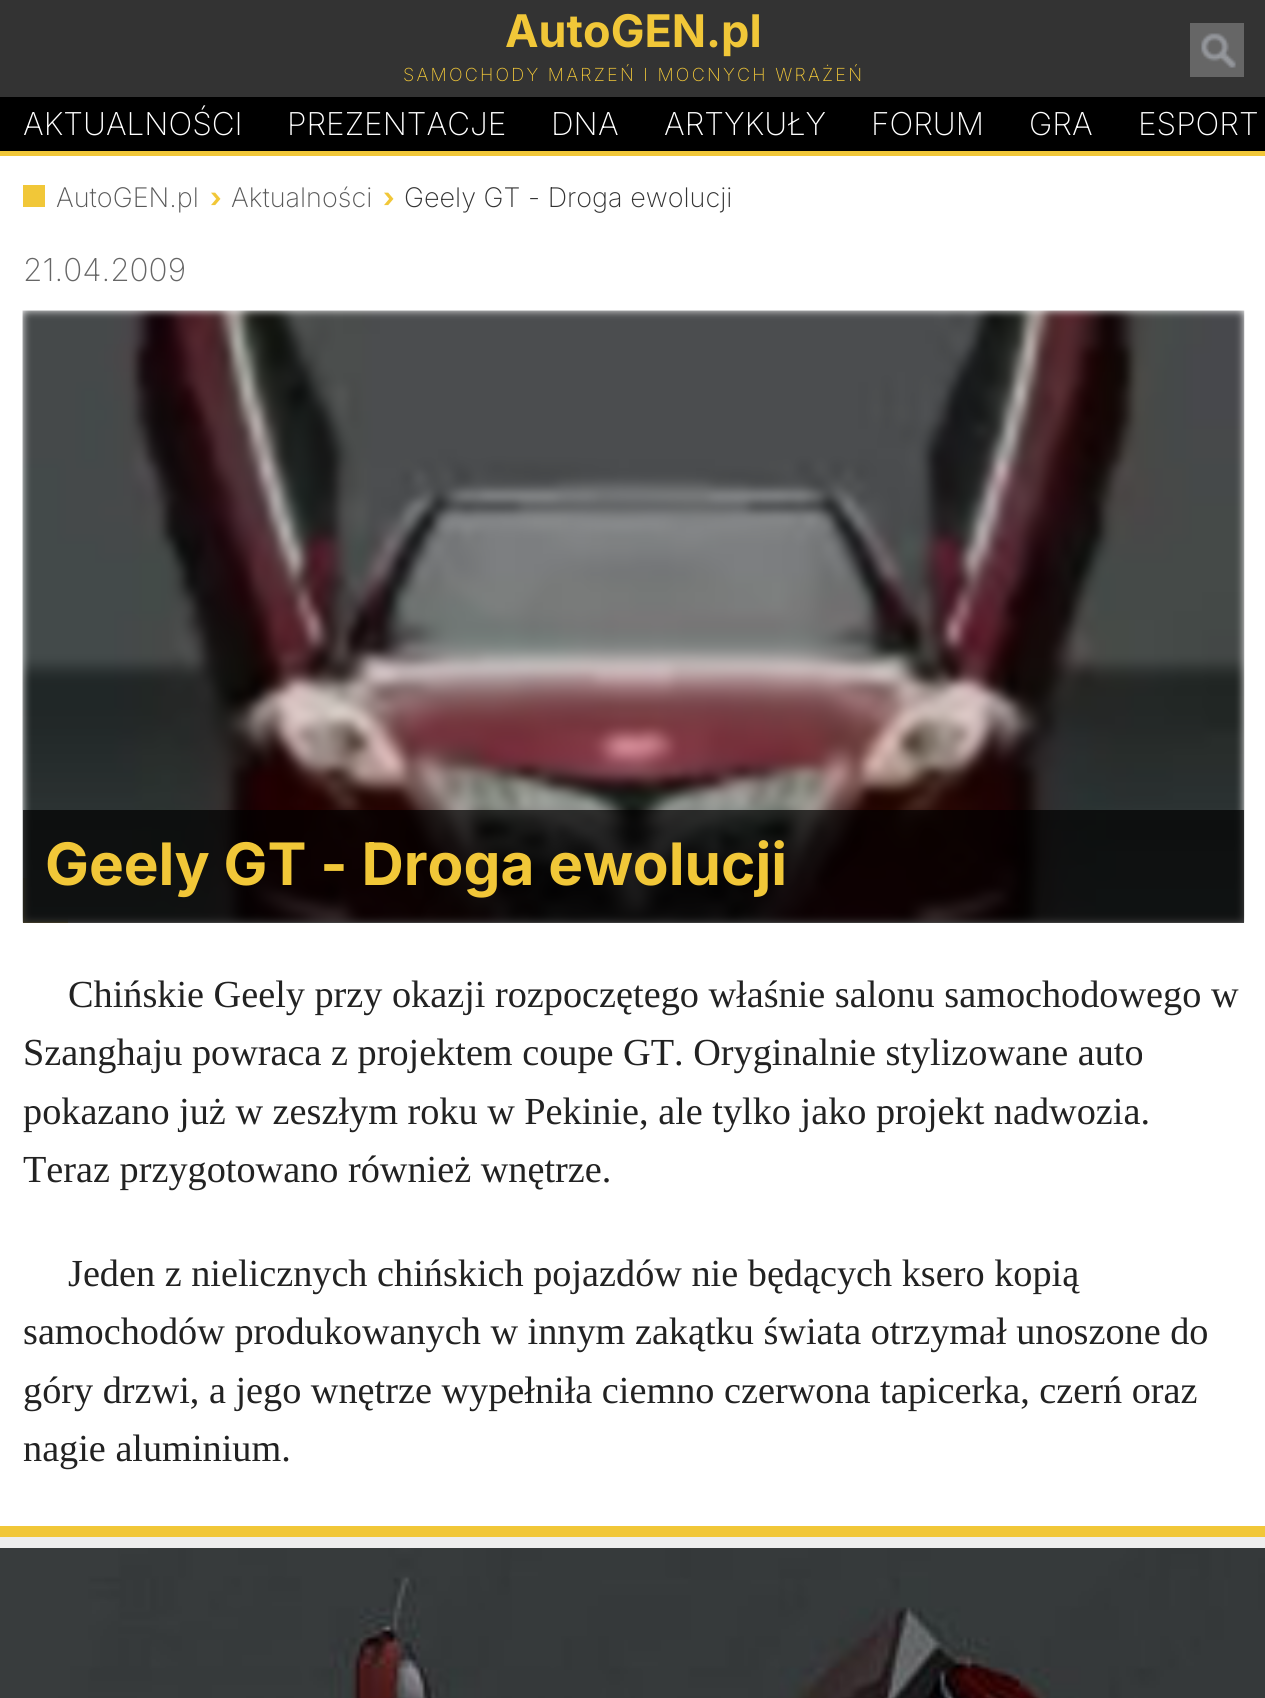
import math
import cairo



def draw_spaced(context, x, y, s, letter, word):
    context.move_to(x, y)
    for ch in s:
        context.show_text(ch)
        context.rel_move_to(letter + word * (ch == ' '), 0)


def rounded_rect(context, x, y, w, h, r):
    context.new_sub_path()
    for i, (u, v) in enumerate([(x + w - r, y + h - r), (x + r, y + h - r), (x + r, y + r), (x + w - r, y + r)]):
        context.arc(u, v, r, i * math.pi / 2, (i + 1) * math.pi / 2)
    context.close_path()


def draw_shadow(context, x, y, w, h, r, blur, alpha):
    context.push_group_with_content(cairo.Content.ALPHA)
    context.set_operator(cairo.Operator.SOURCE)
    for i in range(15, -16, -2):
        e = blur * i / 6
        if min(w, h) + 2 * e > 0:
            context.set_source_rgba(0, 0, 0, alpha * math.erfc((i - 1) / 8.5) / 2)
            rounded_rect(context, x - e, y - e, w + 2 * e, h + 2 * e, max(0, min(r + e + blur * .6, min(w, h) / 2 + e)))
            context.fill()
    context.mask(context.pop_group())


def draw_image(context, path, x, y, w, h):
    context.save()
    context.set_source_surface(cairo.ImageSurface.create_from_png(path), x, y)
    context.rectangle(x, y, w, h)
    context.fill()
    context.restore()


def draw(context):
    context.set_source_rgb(1, 1, 1)
    context.paint()
    context.set_source_rgb(0, 0, 0)
    context.rectangle(0, 97, 1265, 54)
    context.fill()
    context.set_source_rgb(241 / 255, 199 / 255, 56 / 255)
    context.rectangle(0, 151, 1265, 5)
    context.fill()
    context.set_source_rgb(51 / 255, 51 / 255, 51 / 255)
    context.rectangle(0, 0, 1265, 97)
    context.fill()
    context.set_source_rgb(102 / 255, 102 / 255, 102 / 255)
    context.rectangle(1190, 23, 54, 54)
    context.fill()
    draw_image(context, "images/1.png", 1201, 33, 35, 35)
    context.set_source_rgb(241 / 255, 199 / 255, 56 / 255)
    context.rectangle(23, 185, 22, 22)
    context.fill()
    context.rectangle(23, 878, 45, 45)
    context.fill()
    context.save()
    context.rectangle(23, 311, 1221, 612)
    context.clip()
    context.set_source_rgb(238 / 255, 238 / 255, 238 / 255)
    draw_shadow(context, 23, 311, 1221, 612, 0, 4.5, 1)
    context.restore()
    draw_image(context, "images/2.png", 22, 310, 1223, 613)
    context.set_source_rgba(0, 0, 0, 0.7)
    context.rectangle(23, 810, 1221, 113)
    context.fill()
    context.set_source_rgb(238 / 255, 238 / 255, 238 / 255)
    context.rectangle(0, 1537, 1265, 11)
    context.fill()
    context.set_source_rgb(241 / 255, 199 / 255, 56 / 255)
    context.rectangle(0, 1526, 1265, 11)
    context.fill()
    draw_image(context, "images/3.png", 0, 1548, 1265, 150)
    context.select_font_face("Inter", cairo.FontSlant.NORMAL, cairo.FontWeight.BOLD)
    context.set_font_size(45)
    context.move_to(505, 47)
    context.show_text("AutoGEN.pl")
    context.select_font_face("Inter ExtraLight")
    context.set_font_size(18)
    draw_spaced(context, 403, 81, "SAMOCHODY MARZEŃ I MOCNYCH WRAŻEŃ", 2.25, 0)
    context.set_font_size(31.5)
    context.set_source_rgb(1, 1, 1)
    context.move_to(23, 135)
    context.show_text("AKTUALNOŚCI")
    context.move_to(287, 135)
    context.show_text("PREZENTACJE")
    context.move_to(551, 135)
    context.show_text("DN")
    context.move_to(598, 135)
    context.show_text("A")
    context.move_to(664, 135)
    context.show_text("ARTYKUŁY")
    context.move_to(871, 135)
    context.show_text("FORUM")
    context.move_to(1029, 135)
    context.show_text("GRA")
    context.move_to(1138, 135)
    context.show_text("ESPORT")
    context.set_font_size(27)
    context.set_source_rgb(89 / 255, 89 / 255, 89 / 255)
    context.move_to(56, 207)
    context.show_text("AutoGEN.pl")
    context.select_font_face("Inter", cairo.FontSlant.NORMAL, cairo.FontWeight.BOLD)
    context.set_source_rgb(241 / 255, 199 / 255, 56 / 255)
    draw_spaced(context, 210, 207, "›", -2, 0)
    context.select_font_face("Inter ExtraLight")
    context.set_source_rgb(89 / 255, 89 / 255, 89 / 255)
    context.move_to(231, 207)
    context.show_text("Aktualności")
    context.select_font_face("Inter", cairo.FontSlant.NORMAL, cairo.FontWeight.BOLD)
    context.set_source_rgb(241 / 255, 199 / 255, 56 / 255)
    draw_spaced(context, 383, 207, "›", -2, 0)
    context.select_font_face("Inter ExtraLight")
    context.set_source_rgb(51 / 255, 51 / 255, 51 / 255)
    context.move_to(404, 207)
    context.show_text("Geely GT - Droga ewolucji")
    context.set_font_size(31.5)
    context.set_source_rgb(102 / 255, 102 / 255, 102 / 255)
    context.move_to(23, 281)
    context.show_text("21.04.2009")
    context.select_font_face("Inter", cairo.FontSlant.NORMAL, cairo.FontWeight.BOLD)
    context.set_font_size(58.5)
    context.set_source_rgb(241 / 255, 199 / 255, 56 / 255)
    context.move_to(45, 885)
    context.show_text("Geely GT - Droga ewolucji")
    context.select_font_face("Liberation Serif")
    context.set_font_size(38.25)
    context.set_source_rgb(34 / 255, 34 / 255, 34 / 255)
    context.move_to(68, 1007)
    context.show_text("Chińskie Geely przy okazji rozpoczętego właśnie salonu samochodowego w")
    context.move_to(23, 1065)
    context.show_text("Szanghaju powraca z projektem coupe GT. Oryginalnie stylizowane auto")
    context.move_to(23, 1124)
    context.show_text("pokazano już w zeszłym roku w Pekinie, ale tylko jako projekt nadwozia.")
    context.move_to(23, 1182)
    context.show_text("Teraz przygotowano również wnętrze.")
    context.move_to(68, 1286)
    context.show_text("Jeden z nielicznych chińskich pojazdów nie będących ksero kopią")
    context.move_to(23, 1344)
    context.show_text("samochodów produkowanych w innym zakątku świata otrzymał unoszone do")
    context.move_to(23, 1403)
    context.show_text("góry drzwi, a jego wnętrze wypełniła ciemno czerwona tapicerka, czerń oraz")
    context.move_to(23, 1461)
    context.show_text("nagie aluminium.")


surface = cairo.ImageSurface(cairo.Format.RGB24, 1265, 1698)
context = cairo.Context(surface)
options = cairo.FontOptions()
options.set_hint_metrics(cairo.HintMetrics.OFF)
options.set_hint_style(cairo.HintStyle.NONE)
context.set_font_options(options)
context.set_miter_limit(4)
draw(context)
surface.write_to_png("out.png")
